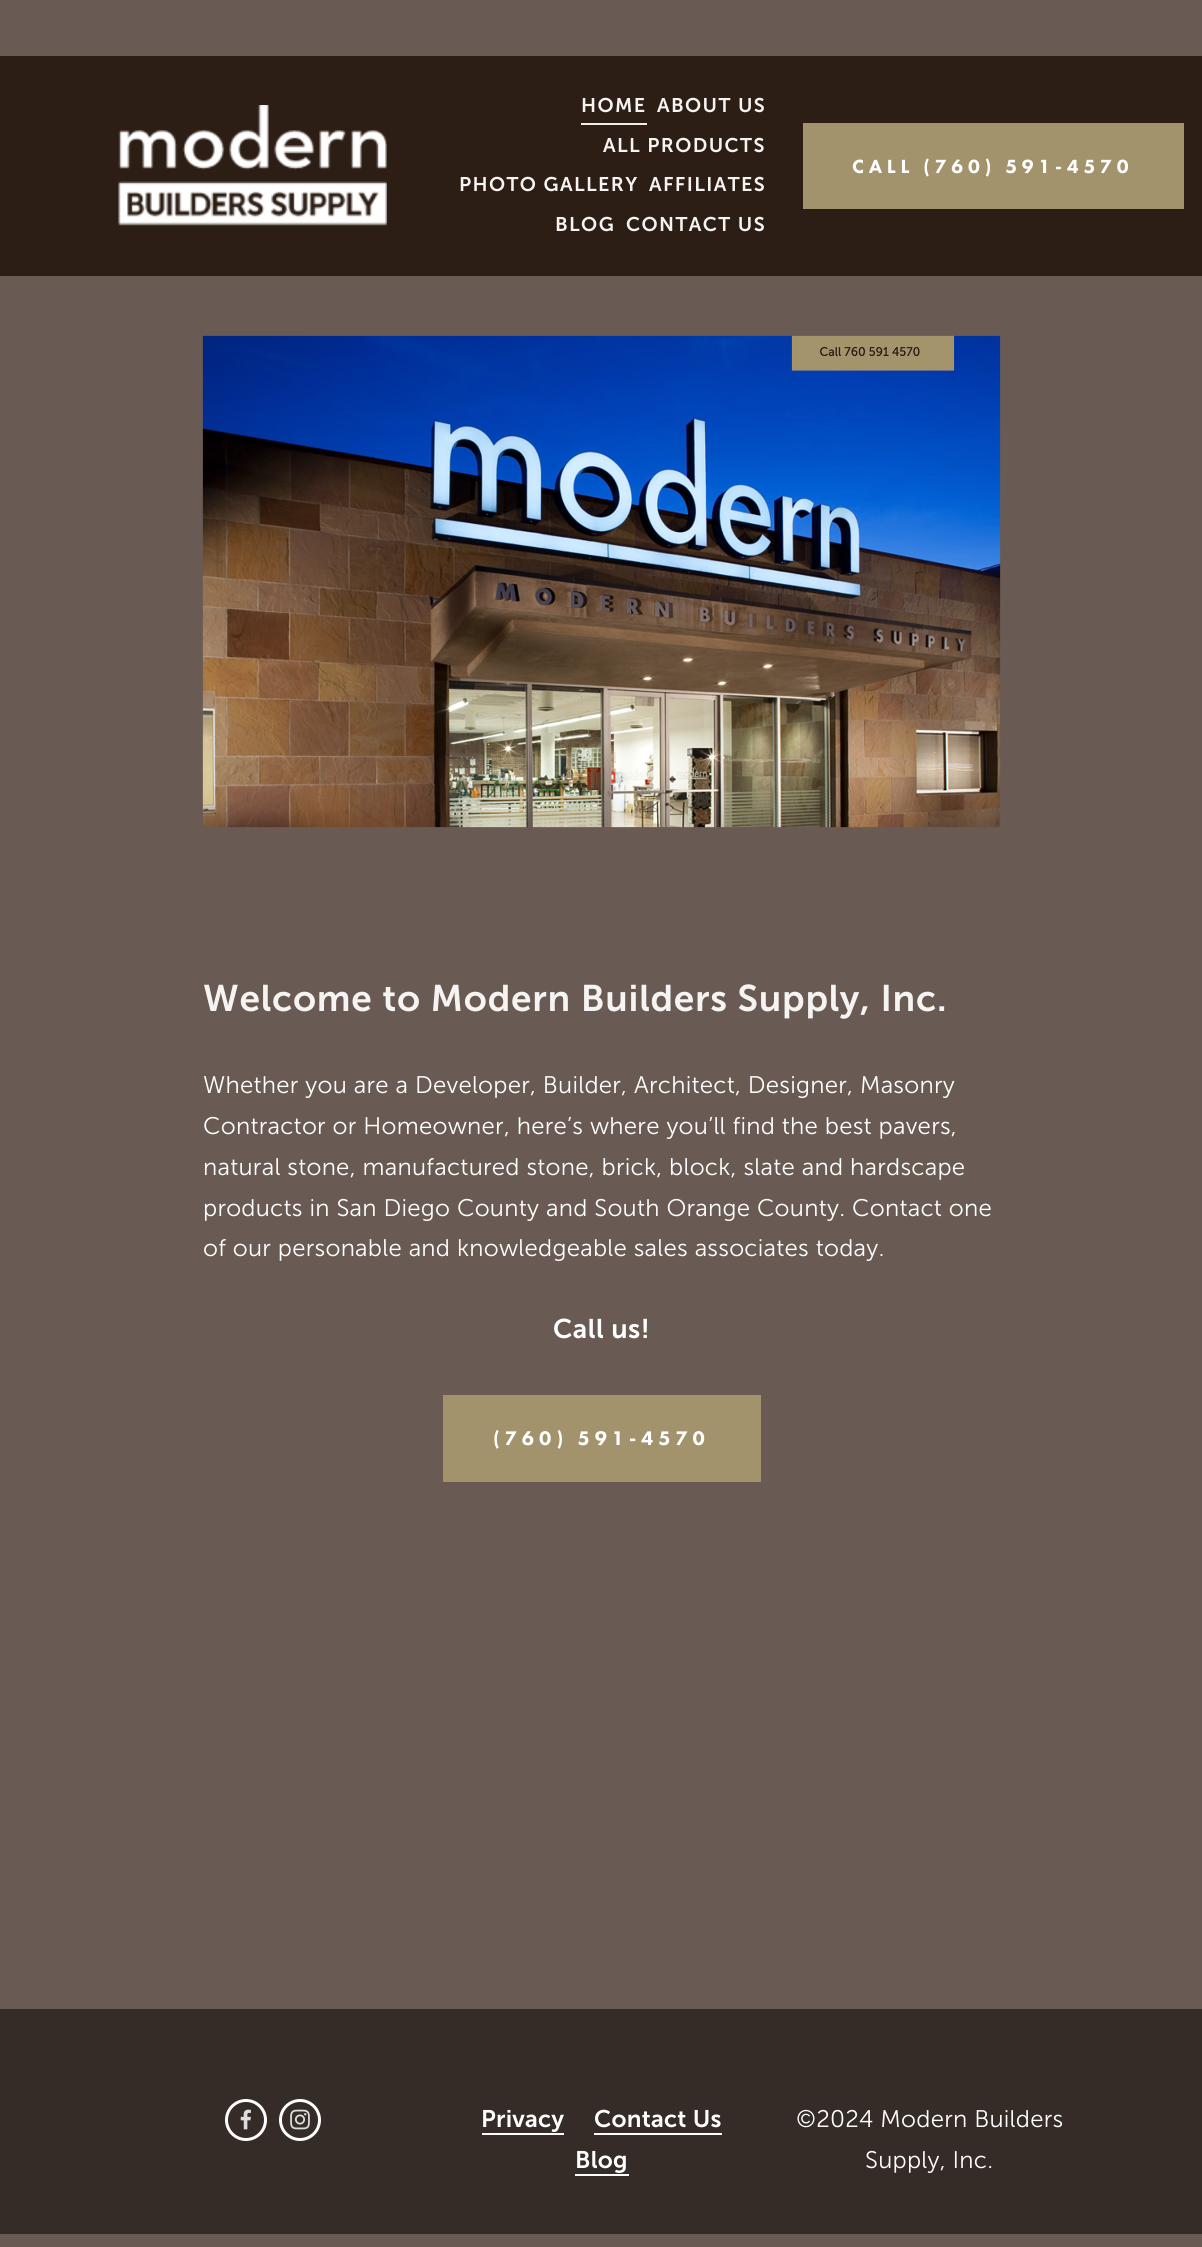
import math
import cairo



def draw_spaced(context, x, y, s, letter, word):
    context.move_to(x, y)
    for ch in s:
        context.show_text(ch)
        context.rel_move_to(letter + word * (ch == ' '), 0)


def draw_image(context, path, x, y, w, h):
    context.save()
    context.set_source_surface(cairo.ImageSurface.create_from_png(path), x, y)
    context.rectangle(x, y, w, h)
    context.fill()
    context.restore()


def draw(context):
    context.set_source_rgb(105 / 255, 91 / 255, 84 / 255)
    context.paint()
    context.set_source_rgb(45 / 255, 30 / 255, 21 / 255)
    context.rectangle(0, 56, 1202, 220)
    context.fill()
    draw_image(context, "images/1.png", 118, 105, 269, 121)
    context.set_source_rgb(241 / 255, 239 / 255, 238 / 255)
    context.rectangle(581, 123, 66, 2)
    context.fill()
    context.set_source_rgb(163 / 255, 147 / 255, 108 / 255)
    context.rectangle(803, 123, 381, 86)
    context.fill()
    draw_image(context, "images/2.png", 202, 335, 799, 493)
    context.rectangle(443, 1395, 318, 87)
    context.fill()
    context.set_source_rgb(53 / 255, 43 / 255, 39 / 255)
    context.rectangle(0, 2009, 1202, 225)
    context.fill()
    context.arc(246, 2120, 19.5, 0, 2 * math.pi)
    context.set_source_rgb(1, 1, 1)
    context.set_line_width(3)
    context.stroke()
    draw_image(context, "images/3.png", 240, 2109, 11, 21)
    context.arc(300, 2120, 19.5, 0, 2 * math.pi)
    context.stroke()
    draw_image(context, "images/4.png", 290, 2109, 20, 21)
    context.rectangle(482, 2133, 82, 2)
    context.fill()
    context.rectangle(594, 2133, 128, 2)
    context.fill()
    context.rectangle(575, 2174, 54, 2)
    context.fill()
    context.select_font_face("Museo Sans SemiBold")
    context.set_font_size(19.75)
    context.set_source_rgb(245 / 255, 244 / 255, 243 / 255)
    draw_spaced(context, 581, 112, "HOME", 1.4, 0)
    draw_spaced(context, 657, 112, "ABOUT US", 1.4, 0)
    draw_spaced(context, 603, 152, "ALL PRODUCTS", 1.4, 0)
    draw_spaced(context, 459, 191, "PHOTO GALLERY", 1.4, 0)
    draw_spaced(context, 649, 191, "AFFILIATES", 1.4, 0)
    draw_spaced(context, 555, 231, "BLOG", 1.4, 0)
    draw_spaced(context, 626, 231, "CONTACT US", 1.4, 0)
    context.select_font_face("Futura PT Black")
    context.set_source_rgb(1, 1, 1)
    draw_spaced(context, 852, 173, "CALL (760) 591-4570", 4.75, 0)
    context.select_font_face("Museo Sans SemiBold")
    context.set_font_size(37)
    context.set_source_rgb(245 / 255, 244 / 255, 243 / 255)
    draw_spaced(context, 203, 1011, "Welcome to Modern Builders Supply, Inc.", 0.75, 0)
    context.select_font_face("Museo Sans Light")
    context.set_font_size(24)
    context.set_source_rgb(1, 1, 1)
    draw_spaced(context, 203, 1093, "Whether you are a Developer, Builder, Architect, Designer, Masonry", 0.25, 0)
    draw_spaced(context, 203, 1134, "Contractor or Homeowner, here’s where you’ll find the best pavers,", 0.25, 0)
    draw_spaced(context, 203, 1175, "natural stone, manufactured stone, brick, block, slate and hardscape", 0.25, 0)
    draw_spaced(context, 203, 1216, "products in San Diego County and South Orange County. Contact one", 0.25, 0)
    draw_spaced(context, 203, 1256, "of our personable and knowledgeable sales associates today.", 0.25, 0)
    context.select_font_face("Museo Sans SemiBold")
    context.set_font_size(27)
    draw_spaced(context, 553, 1338, "Call us!", 0.5, 0)
    context.select_font_face("Futura PT Black")
    context.set_font_size(20.4)
    draw_spaced(context, 493, 1445, "(760) 591-4570", 4.9, 0)
    context.select_font_face("Museo Sans SemiBold")
    context.set_font_size(24)
    draw_spaced(context, 481, 2127, "Privacy", 0.25, 0)
    draw_spaced(context, 594, 2127, "Contact Us", 0.25, 0)
    draw_spaced(context, 575, 2168, "Blog", 0.25, 0)
    context.select_font_face("Museo Sans Light")
    draw_spaced(context, 796, 2127, "©2024 Modern Builders", 0.25, 0)
    draw_spaced(context, 865, 2168, "Supply, Inc.", 0.25, 0)


surface = cairo.ImageSurface(cairo.Format.RGB24, 1202, 2247)
context = cairo.Context(surface)
options = cairo.FontOptions()
options.set_hint_metrics(cairo.HintMetrics.OFF)
options.set_hint_style(cairo.HintStyle.NONE)
context.set_font_options(options)
context.set_miter_limit(4)
draw(context)
surface.write_to_png("out.png")
